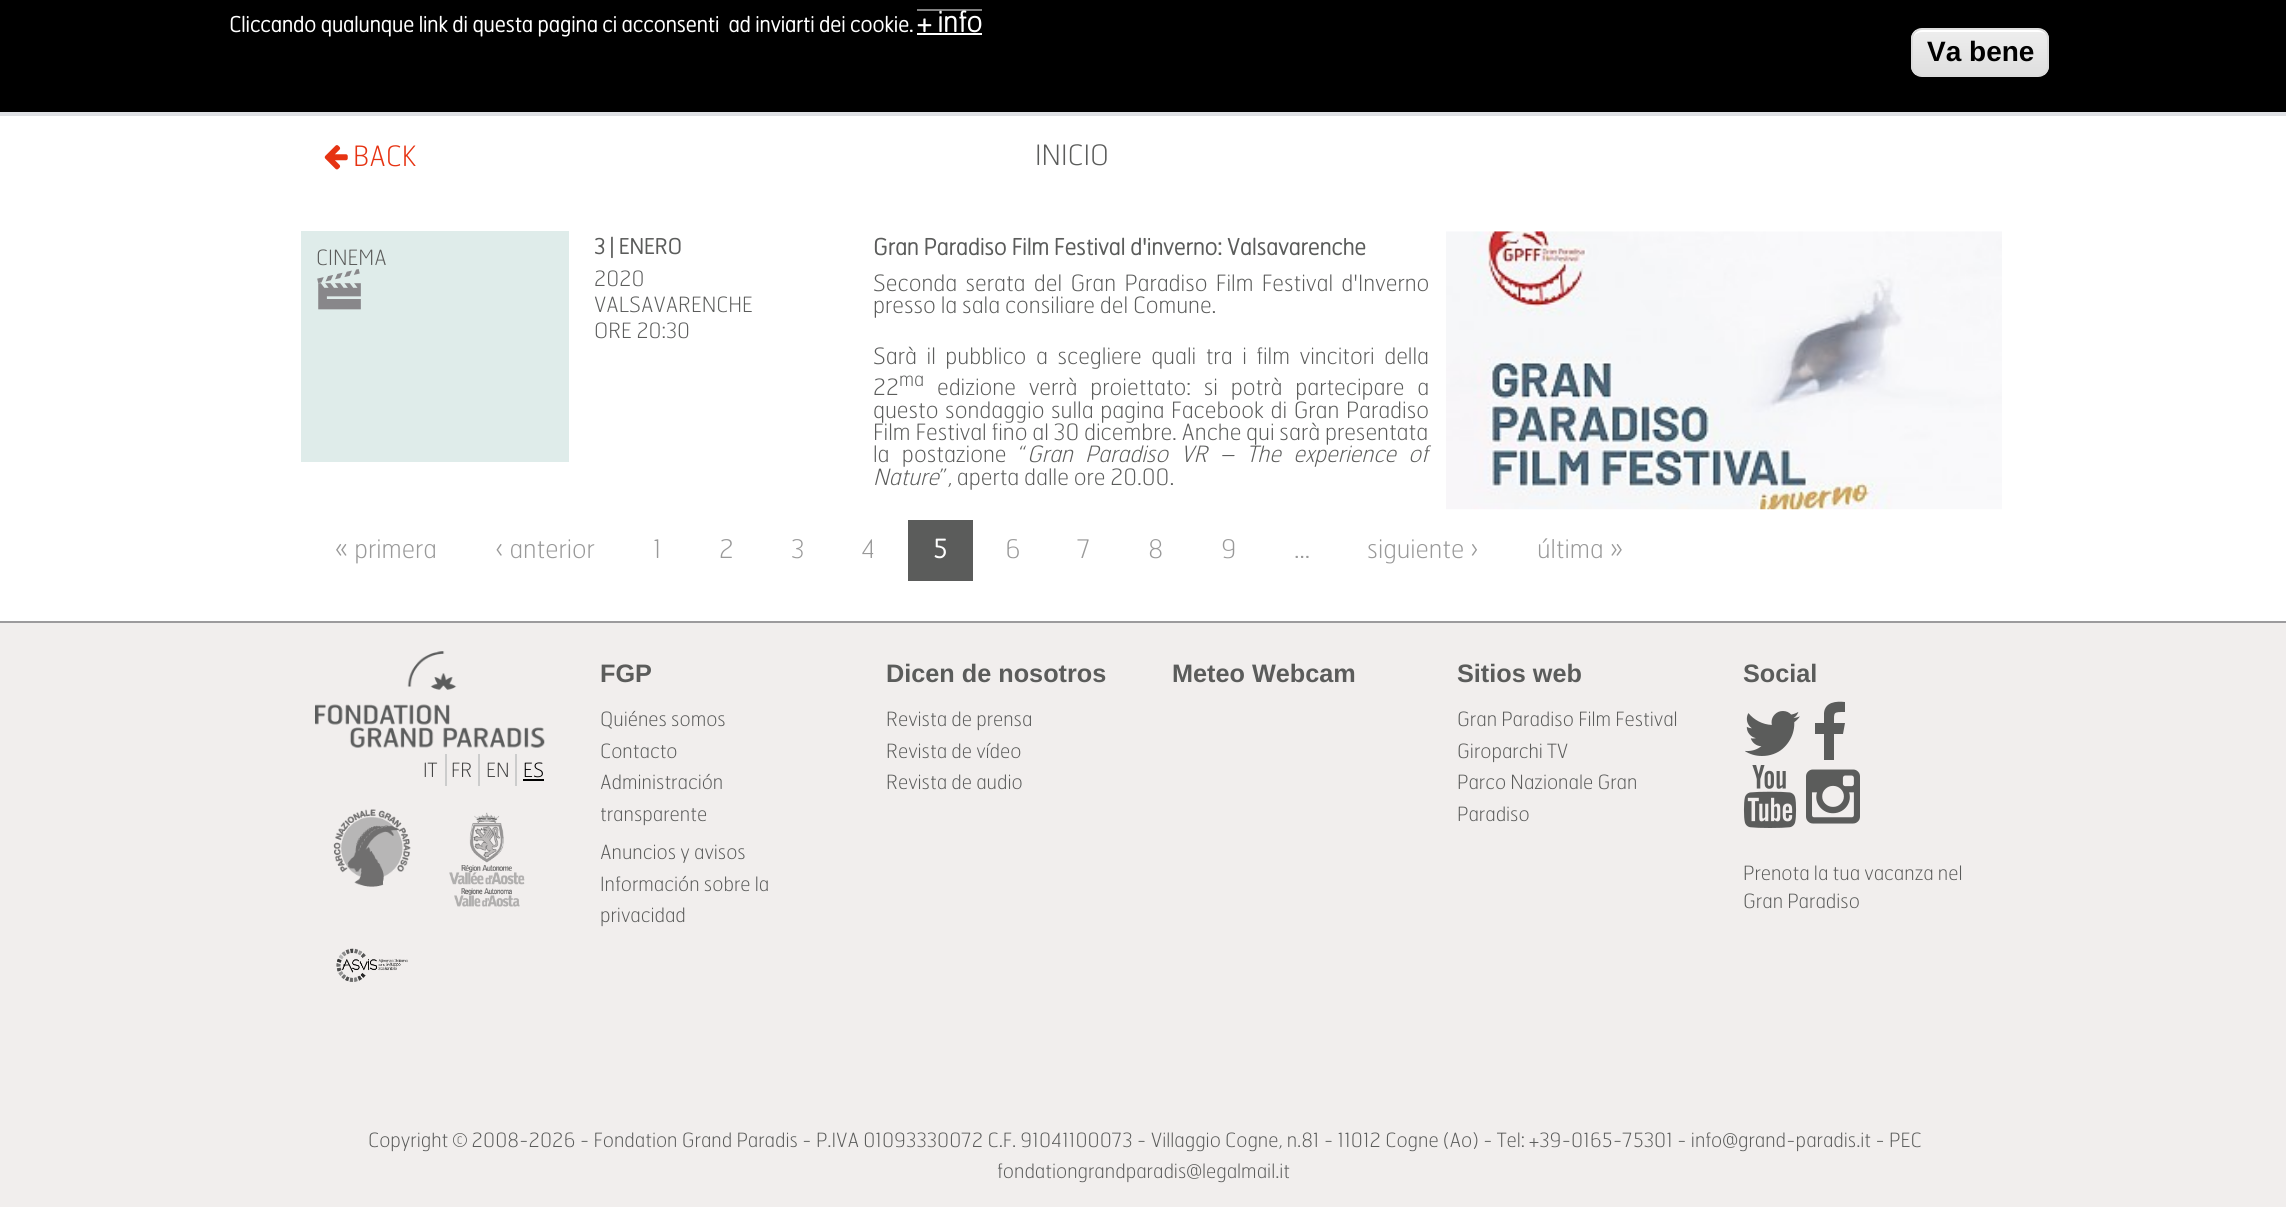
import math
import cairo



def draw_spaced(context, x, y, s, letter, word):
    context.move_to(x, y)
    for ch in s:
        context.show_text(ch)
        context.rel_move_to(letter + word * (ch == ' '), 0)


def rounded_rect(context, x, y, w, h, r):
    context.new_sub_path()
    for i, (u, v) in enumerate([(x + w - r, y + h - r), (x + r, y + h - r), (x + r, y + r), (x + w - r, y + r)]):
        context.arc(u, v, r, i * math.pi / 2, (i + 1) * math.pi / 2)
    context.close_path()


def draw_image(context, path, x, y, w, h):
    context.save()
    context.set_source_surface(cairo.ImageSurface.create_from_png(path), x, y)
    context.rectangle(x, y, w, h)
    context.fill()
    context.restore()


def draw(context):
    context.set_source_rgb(1, 1, 1)
    context.paint()
    context.set_source_rgb(0, 0, 0)
    context.rectangle(0, 0, 2286, 112)
    context.fill()
    context.set_source_rgb(128 / 255, 128 / 255, 128 / 255)
    context.rectangle(917, 9, 65, 2)
    context.fill()
    context.set_source_rgb(1, 1, 1)
    context.rectangle(917, 33, 65, 2)
    context.fill()
    context.save()
    rounded_rect(context, 1911, 28, 138, 49, 11)
    context.clip()
    gradient = cairo.LinearGradient(1980, 30, 1980, 75)
    gradient.add_color_stop_rgba(0.05, 237 / 255, 237 / 255, 237 / 255, 1)
    gradient.add_color_stop_rgba(1, 223 / 255, 223 / 255, 223 / 255, 1)
    context.set_source(gradient)
    context.rectangle(1911, 30, 138, 45)
    context.fill()
    context.restore()
    context.new_path()
    context.move_to(1922, 32)
    context.line_to(2039, 32)
    context.curve_to(2044, 32, 2048, 35, 2048, 40)
    context.curve_to(2048, 25, 2028, 30, 2020, 30)
    context.line_to(1942, 30)
    context.curve_to(1933, 30, 1913, 25, 1913, 40)
    context.curve_to(1913, 35, 1917, 32, 1922, 32)
    context.close_path()
    context.fill()
    rounded_rect(context, 1912, 29, 136, 47, 10)
    context.set_source_rgb(220 / 255, 220 / 255, 220 / 255)
    context.stroke()
    gradient = cairo.LinearGradient(1144, 54, 1144, 116)
    gradient.add_color_stop_rgba(0, 245 / 255, 246 / 255, 249 / 255, 1)
    gradient.add_color_stop_rgba(1, 221 / 255, 223 / 255, 227 / 255, 1)
    context.set_source(gradient)
    context.rectangle(0, 112, 2286, 4)
    context.fill()
    draw_image(context, "images/1.png", 324, 145, 24, 25)
    context.set_source_rgb(223 / 255, 236 / 255, 234 / 255)
    context.rectangle(301, 231, 268, 231)
    context.fill()
    draw_image(context, "images/2.png", 317, 269, 44, 41)
    draw_image(context, "images/3.png", 1446, 231, 556, 279)
    context.set_source_rgb(91 / 255, 92 / 255, 91 / 255)
    context.rectangle(908, 520, 65, 61)
    context.fill()
    context.set_source_rgb(241 / 255, 238 / 255, 237 / 255)
    context.rectangle(0, 623, 2286, 584)
    context.fill()
    context.set_source_rgb(156 / 255, 155 / 255, 157 / 255)
    context.rectangle(0, 621, 2286, 2)
    context.fill()
    draw_image(context, "images/4.png", 315, 651, 230, 97)
    context.set_source_rgb(204 / 255, 204 / 255, 204 / 255)
    context.rectangle(445, 754, 2, 32)
    context.fill()
    context.rectangle(478, 754, 2, 32)
    context.fill()
    context.rectangle(515, 754, 2, 32)
    context.fill()
    context.set_source_rgb(0, 0, 0)
    context.rectangle(523, 779, 21, 2)
    context.fill()
    draw_image(context, "images/5.png", 333, 809, 78, 78)
    draw_image(context, "images/6.png", 449, 812, 76, 95)
    draw_image(context, "images/7.png", 336, 948, 72, 34)
    draw_image(context, "images/8.png", 1745, 711, 55, 45)
    context.set_source_rgb(91 / 255, 92 / 255, 91 / 255)
    context.new_path()
    context.move_to(1845, 702)
    context.line_to(1845, 712)
    context.curve_to(1833, 712, 1834, 712, 1834, 723)
    context.line_to(1845, 723)
    context.line_to(1843, 734)
    context.line_to(1834, 734)
    context.line_to(1834, 760)
    context.line_to(1824, 760)
    context.line_to(1824, 734)
    context.line_to(1815, 734)
    context.line_to(1815, 723)
    context.line_to(1824, 723)
    context.line_to(1824, 713)
    context.curve_to(1825, 702, 1836, 701, 1845, 702)
    context.close_path()
    context.fill()
    draw_image(context, "images/9.png", 1743, 765, 54, 63)
    draw_image(context, "images/10.png", 1806, 769, 54, 55)
    context.select_font_face("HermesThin", cairo.FontSlant.NORMAL, cairo.FontWeight.BOLD)
    context.set_font_size(21)
    context.set_source_rgb(1, 1, 1)
    context.move_to(229, 32)
    context.show_text("Cliccando qualunque link di questa pagina ci acconsenti  ad inviarti dei cookie.")
    context.set_font_size(28)
    context.move_to(917, 32)
    context.show_text("+ info")
    context.select_font_face("Liberation Sans", cairo.FontSlant.NORMAL, cairo.FontWeight.BOLD)
    context.set_source_rgb(0, 0, 0)
    context.move_to(1927, 61)
    context.show_text("Va bene")
    context.select_font_face("HermesThin Thin")
    context.set_source_rgb(230 / 255, 51 / 255, 18 / 255)
    context.move_to(353, 166)
    context.show_text("BACK")
    context.set_source_rgb(91 / 255, 92 / 255, 91 / 255)
    context.move_to(1035, 165)
    context.show_text("INICIO")
    context.set_font_size(21)
    context.move_to(316, 265)
    context.show_text("CINEMA")
    context.select_font_face("HermesThin", cairo.FontSlant.NORMAL, cairo.FontWeight.BOLD)
    context.move_to(594, 254)
    context.show_text("3 | ENERO")
    context.select_font_face("HermesThin Thin")
    context.move_to(594, 286)
    context.show_text("2020")
    context.move_to(594, 312)
    context.show_text("VALSAVARENCHE")
    context.move_to(594, 338)
    context.show_text("ORE 20:30")
    context.select_font_face("HermesThin", cairo.FontSlant.NORMAL, cairo.FontWeight.BOLD)
    context.set_font_size(22.4)
    context.move_to(873, 255)
    context.show_text("Gran Paradiso Film Festival d'inverno: Valsavarenche")
    context.select_font_face("HermesThin Thin")
    draw_spaced(context, 873, 291, "Seconda serata del Gran Paradiso Film Festival d'Inverno", 0, 3.5)
    context.move_to(873, 313)
    context.show_text("presso la sala consiliare del Comune.")
    draw_spaced(context, 873, 364, "Sarà il pubblico a scegliere quali tra i film vincitori della", 0, 4.75)
    context.move_to(873, 395)
    context.show_text("22")
    context.set_font_size(19)
    context.move_to(899, 386)
    context.show_text("ma")
    context.set_font_size(22.4)
    draw_spaced(context, 937, 395, "edizione verrà proiettato: si potrà partecipare a", 0, 8)
    draw_spaced(context, 873, 418, "questo sondaggio sulla pagina Facebook di Gran Paradiso", 0, 1.75)
    context.move_to(873, 440)
    context.show_text("Film Festival fino al 30 dicembre. Anche qui sarà presentata")
    draw_spaced(context, 873, 462, "la postazione “", 0, 7.5)
    context.select_font_face("HermesThin Thin", cairo.FontSlant.ITALIC)
    draw_spaced(context, 1027, 462, "Gran Paradiso VR – The experience of", 0, 7.5)
    context.move_to(873, 485)
    context.show_text("Nature")
    context.select_font_face("HermesThin Thin")
    context.move_to(939, 485)
    context.show_text("”, aperta dalle ore 20.00.")
    context.set_font_size(25.5)
    context.set_source_rgb(153 / 255, 153 / 255, 153 / 255)
    context.move_to(335, 558)
    context.show_text("« primera")
    context.move_to(495, 558)
    context.show_text("‹ anterior")
    context.move_to(653, 558)
    context.show_text("1")
    context.move_to(719, 558)
    context.show_text("2")
    context.move_to(791, 558)
    context.show_text("3")
    context.move_to(861, 558)
    context.show_text("4")
    context.select_font_face("HermesThin", cairo.FontSlant.NORMAL, cairo.FontWeight.BOLD)
    context.set_source_rgb(1, 1, 1)
    context.move_to(933, 558)
    context.show_text("5")
    context.select_font_face("HermesThin Thin")
    context.set_source_rgb(153 / 255, 153 / 255, 153 / 255)
    context.move_to(1005, 558)
    context.show_text("6")
    context.move_to(1077, 558)
    context.show_text("7")
    context.move_to(1148, 558)
    context.show_text("8")
    context.move_to(1221, 558)
    context.show_text("9")
    context.move_to(1294, 558)
    context.show_text("…")
    context.move_to(1367, 558)
    context.show_text("siguiente ›")
    context.move_to(1537, 558)
    context.show_text("última »")
    context.set_font_size(19.6)
    context.set_source_rgb(68 / 255, 68 / 255, 68 / 255)
    context.move_to(423, 777)
    context.show_text("IT")
    context.move_to(451, 777)
    context.show_text("FR")
    context.move_to(486, 777)
    context.show_text("EN")
    context.set_source_rgb(0, 0, 0)
    context.move_to(523, 777)
    context.show_text("ES")
    context.select_font_face("Liberation Sans", cairo.FontSlant.NORMAL, cairo.FontWeight.BOLD)
    context.set_font_size(25.25)
    context.set_source_rgb(91 / 255, 92 / 255, 91 / 255)
    context.move_to(600, 682)
    context.show_text("FGP")
    context.select_font_face("HermesThin Thin")
    context.set_font_size(19.6)
    context.move_to(600, 726)
    context.show_text("Quiénes somos")
    context.move_to(600, 758)
    context.show_text("Contacto")
    context.move_to(600, 789)
    context.show_text("Administración")
    context.move_to(600, 821)
    context.show_text("transparente")
    context.move_to(600, 859)
    context.show_text("Anuncios y avisos")
    context.move_to(600, 891)
    context.show_text("Información sobre la")
    context.move_to(600, 922)
    context.show_text("privacidad")
    context.select_font_face("Liberation Sans", cairo.FontSlant.NORMAL, cairo.FontWeight.BOLD)
    context.set_font_size(25.25)
    context.move_to(886, 682)
    context.show_text("Dicen de nosotros")
    context.select_font_face("HermesThin Thin")
    context.set_font_size(19.6)
    context.move_to(886, 726)
    context.show_text("Revista de prensa")
    context.move_to(886, 758)
    context.show_text("Revista de vídeo")
    context.move_to(886, 789)
    context.show_text("Revista de audio")
    context.select_font_face("Liberation Sans", cairo.FontSlant.NORMAL, cairo.FontWeight.BOLD)
    context.set_font_size(25.25)
    context.move_to(1172, 682)
    context.show_text("Meteo Webcam")
    context.move_to(1457, 682)
    context.show_text("Sitios web")
    context.select_font_face("HermesThin Thin")
    context.set_font_size(19.6)
    context.move_to(1457, 726)
    context.show_text("Gran Paradiso Film Festival")
    context.move_to(1457, 758)
    context.show_text("Giroparchi TV")
    context.move_to(1457, 789)
    context.show_text("Parco Nazionale Gran")
    context.move_to(1457, 821)
    context.show_text("Paradiso")
    context.select_font_face("Liberation Sans", cairo.FontSlant.NORMAL, cairo.FontWeight.BOLD)
    context.set_font_size(25.25)
    context.move_to(1743, 682)
    context.show_text("Social")
    context.select_font_face("HermesThin Thin")
    context.set_font_size(19.6)
    context.move_to(1743, 880)
    context.show_text("Prenota la tua vacanza nel")
    context.move_to(1743, 908)
    context.show_text("Gran Paradiso")
    context.move_to(368, 1147)
    context.show_text("Copyright © 2008-2026 - Fondation Grand Paradis - P.IVA 01093330072 C.F. 91041100073 - Villaggio Cogne, n.81 - 11012 Cogne (Ao) - Tel: +39-0165-75301 - info@grand-paradis.it - PEC")
    context.move_to(997, 1178)
    context.show_text("fondationgrandparadis@legalmail.it")


surface = cairo.ImageSurface(cairo.Format.RGB24, 2286, 1207)
context = cairo.Context(surface)
options = cairo.FontOptions()
options.set_hint_metrics(cairo.HintMetrics.OFF)
options.set_hint_style(cairo.HintStyle.NONE)
context.set_font_options(options)
context.set_miter_limit(4)
draw(context)
surface.write_to_png("out.png")
